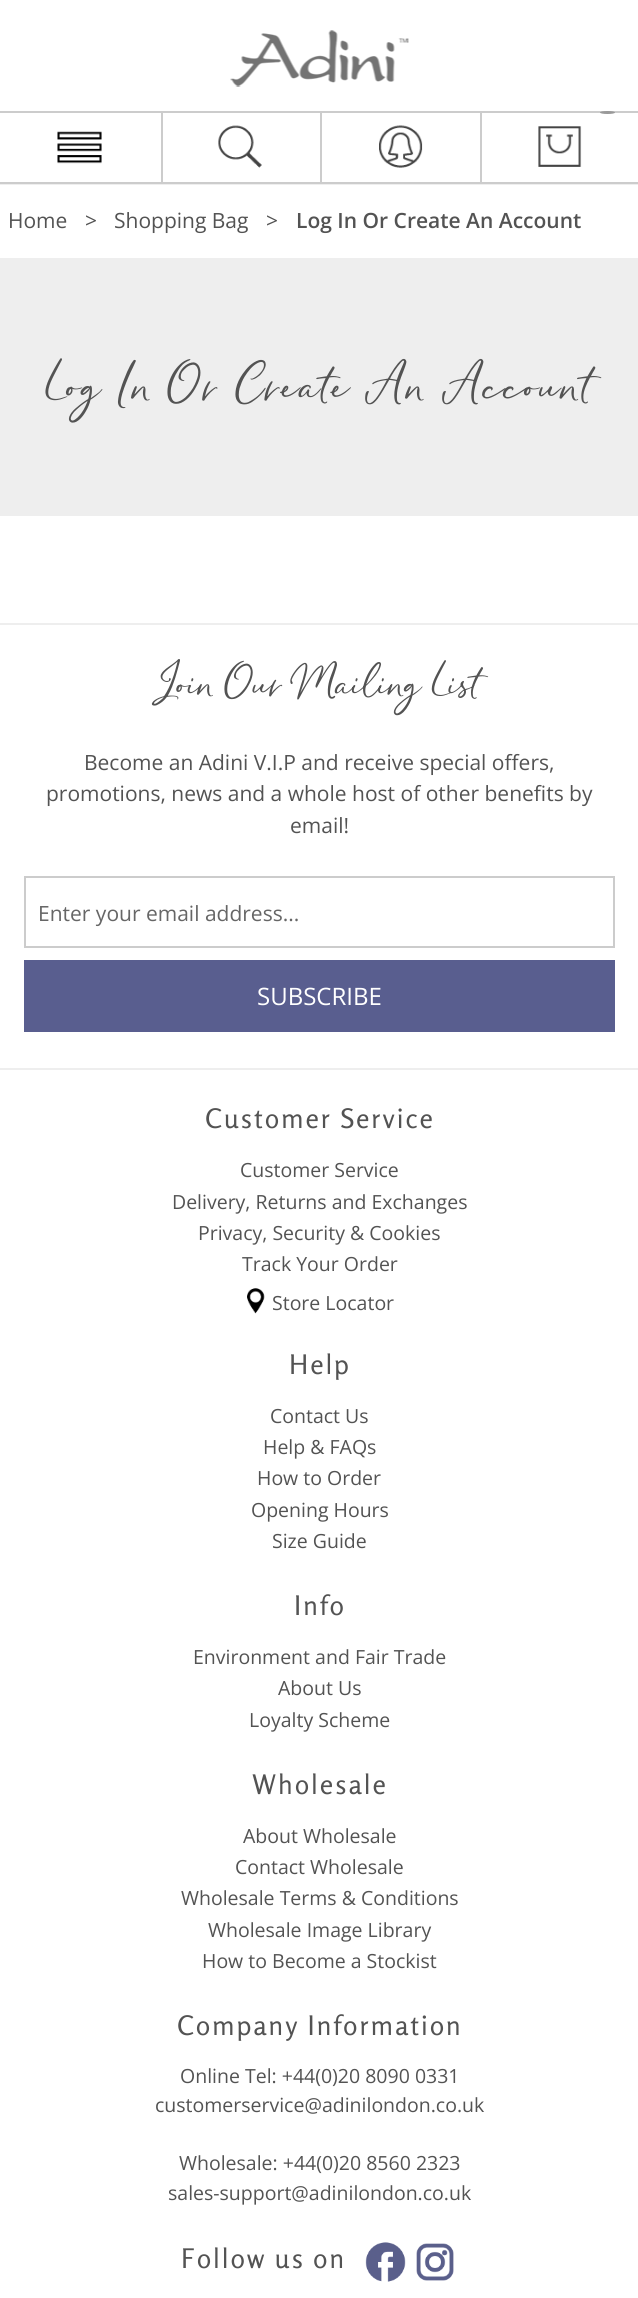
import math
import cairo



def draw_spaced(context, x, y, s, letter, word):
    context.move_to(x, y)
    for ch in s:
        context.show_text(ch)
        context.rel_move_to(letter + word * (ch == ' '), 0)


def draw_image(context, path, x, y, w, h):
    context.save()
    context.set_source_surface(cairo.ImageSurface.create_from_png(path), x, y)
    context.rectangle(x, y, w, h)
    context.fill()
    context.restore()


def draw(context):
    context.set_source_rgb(1, 1, 1)
    context.paint()
    context.set_source_rgb(238 / 255, 238 / 255, 238 / 255)
    context.rectangle(0, 184, 638, 1)
    context.fill()
    draw_image(context, "images/1.png", 230, 30, 179, 57)
    context.set_source_rgb(204 / 255, 204 / 255, 204 / 255)
    context.rectangle(0, 111, 638, 2)
    context.fill()
    context.rectangle(0, 182, 638, 2)
    context.fill()
    draw_image(context, "images/2.png", 57, 131, 45, 33)
    context.rectangle(161, 111, 2, 72)
    context.fill()
    draw_image(context, "images/3.png", 218, 125, 44, 43)
    context.rectangle(320, 111, 2, 72)
    context.fill()
    draw_image(context, "images/4.png", 379, 125, 44, 43)
    context.rectangle(480, 111, 2, 72)
    context.fill()
    context.set_source_rgb(153 / 255, 153 / 255, 153 / 255)
    context.new_path()
    context.move_to(607.5, 111)
    context.curve_to(611.5, 111, 615, 111.5, 615, 112.5)
    context.curve_to(615, 113.5, 611.5, 114, 607.5, 114)
    context.curve_to(603.5, 114, 600, 113.5, 600, 112.5)
    context.curve_to(600, 111.5, 603.5, 111, 607.5, 111)
    context.close_path()
    context.fill()
    draw_image(context, "images/5.png", 538, 126, 44, 41)
    context.set_source_rgb(238 / 255, 238 / 255, 238 / 255)
    context.rectangle(0, 258, 638, 258)
    context.fill()
    context.rectangle(0, 623, 638, 2)
    context.fill()
    context.rectangle(0, 1068, 638, 2)
    context.fill()
    context.rectangle(25, 877, 589, 70)
    context.set_source_rgb(204 / 255, 204 / 255, 204 / 255)
    context.stroke()
    context.set_source_rgb(89 / 255, 94 / 255, 143 / 255)
    context.rectangle(24, 960, 591, 72)
    context.fill()
    draw_image(context, "images/6.png", 247, 1288, 18, 26)
    draw_image(context, "images/7.png", 365, 2242, 41, 40)
    draw_image(context, "images/8.png", 416, 2243, 38, 38)
    context.select_font_face("Open Sans")
    context.set_font_size(21)
    context.set_source_rgb(83 / 255, 83 / 255, 83 / 255)
    context.move_to(8, 228)
    context.show_text("Home")
    context.move_to(85, 228)
    context.show_text(">")
    context.move_to(114, 228)
    context.show_text("Shopping Bag")
    context.move_to(266, 228)
    context.show_text(">")
    context.select_font_face("Open Sans SemiBold")
    context.move_to(296, 228)
    context.show_text("Log In Or Create An Account")
    context.select_font_face("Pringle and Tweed")
    context.set_font_size(42)
    draw_spaced(context, 46, 399, "Log In Or Create An Account", 2.1, 0)
    context.set_font_size(36)
    context.move_to(161, 695)
    context.show_text("Join Our Mailing List")
    context.select_font_face("Open Sans")
    context.set_font_size(21)
    context.move_to(84, 770)
    context.show_text("Become an Adini V.I.P and receive special offers,")
    context.move_to(46, 801)
    context.show_text("promotions, news and a whole host of other benefits by")
    context.move_to(290, 833)
    context.show_text("email!")
    context.set_source_rgb(102 / 255, 102 / 255, 102 / 255)
    context.move_to(38, 921)
    context.show_text("Enter your email address...")
    context.set_font_size(24)
    context.set_source_rgb(1, 1, 1)
    context.move_to(257, 1005)
    context.show_text("SUBSCRIBE")
    context.select_font_face("Rosario")
    context.set_font_size(27)
    context.set_source_rgb(83 / 255, 83 / 255, 83 / 255)
    draw_spaced(context, 205, 1128, "Customer Service", 1.9, 0)
    context.select_font_face("Open Sans")
    context.set_font_size(19.5)
    context.move_to(240, 1177)
    context.show_text("Customer Service")
    context.move_to(172, 1209)
    context.show_text("Delivery, Returns and Exchanges")
    context.move_to(198, 1240)
    context.show_text("Privacy, Security & Cookies")
    context.move_to(242, 1271)
    context.show_text("Track Your Order")
    context.move_to(272, 1310)
    context.show_text("Store Locator")
    context.select_font_face("Rosario")
    context.set_font_size(27)
    draw_spaced(context, 289, 1374, "Help", 1.9, 0)
    context.select_font_face("Open Sans")
    context.set_font_size(19.5)
    context.move_to(270, 1423)
    context.show_text("Contact Us")
    context.move_to(263, 1454)
    context.show_text("Help & FAQs")
    context.move_to(257, 1485)
    context.show_text("How to Order")
    context.move_to(251, 1517)
    context.show_text("Opening Hours")
    context.move_to(272, 1548)
    context.show_text("Size Guide")
    context.select_font_face("Rosario")
    context.set_font_size(27)
    draw_spaced(context, 294, 1615, "Info", 1.9, 0)
    context.select_font_face("Open Sans")
    context.set_font_size(19.5)
    context.move_to(193, 1664)
    context.show_text("Environment and Fair Trade")
    context.move_to(278, 1695)
    context.show_text("About Us")
    context.move_to(249, 1727)
    context.show_text("Loyalty Scheme")
    context.select_font_face("Rosario")
    context.set_font_size(27)
    draw_spaced(context, 252, 1794, "Wholesale", 1.9, 0)
    context.select_font_face("Open Sans")
    context.set_font_size(19.5)
    context.move_to(243, 1843)
    context.show_text("About Wholesale")
    context.move_to(235, 1874)
    context.show_text("Contact Wholesale")
    context.move_to(181, 1905)
    context.show_text("Wholesale Terms & Conditions")
    context.move_to(208, 1937)
    context.show_text("Wholesale Image Library")
    context.move_to(202, 1968)
    context.show_text("How to Become a Stockist")
    context.select_font_face("Rosario")
    context.set_font_size(27)
    draw_spaced(context, 177, 2035, "Company Information", 1.9, 0)
    context.select_font_face("Open Sans")
    context.set_font_size(19.5)
    context.move_to(180, 2083)
    context.show_text("Online Tel: +44(0)20 8090 0331")
    context.move_to(155, 2112)
    context.show_text("customerservice@adinilondon.co.uk")
    context.move_to(179, 2170)
    context.show_text("Wholesale: +44(0)20 8560 2323")
    context.move_to(168, 2200)
    context.show_text("sales-support@adinilondon.co.uk")
    context.select_font_face("Rosario")
    context.set_font_size(27)
    draw_spaced(context, 181, 2268, "Follow us on", 1.9, 0)


surface = cairo.ImageSurface(cairo.Format.RGB24, 638, 2298)
context = cairo.Context(surface)
options = cairo.FontOptions()
options.set_hint_metrics(cairo.HintMetrics.OFF)
options.set_hint_style(cairo.HintStyle.NONE)
context.set_font_options(options)
context.set_miter_limit(4)
draw(context)
surface.write_to_png("out.png")
